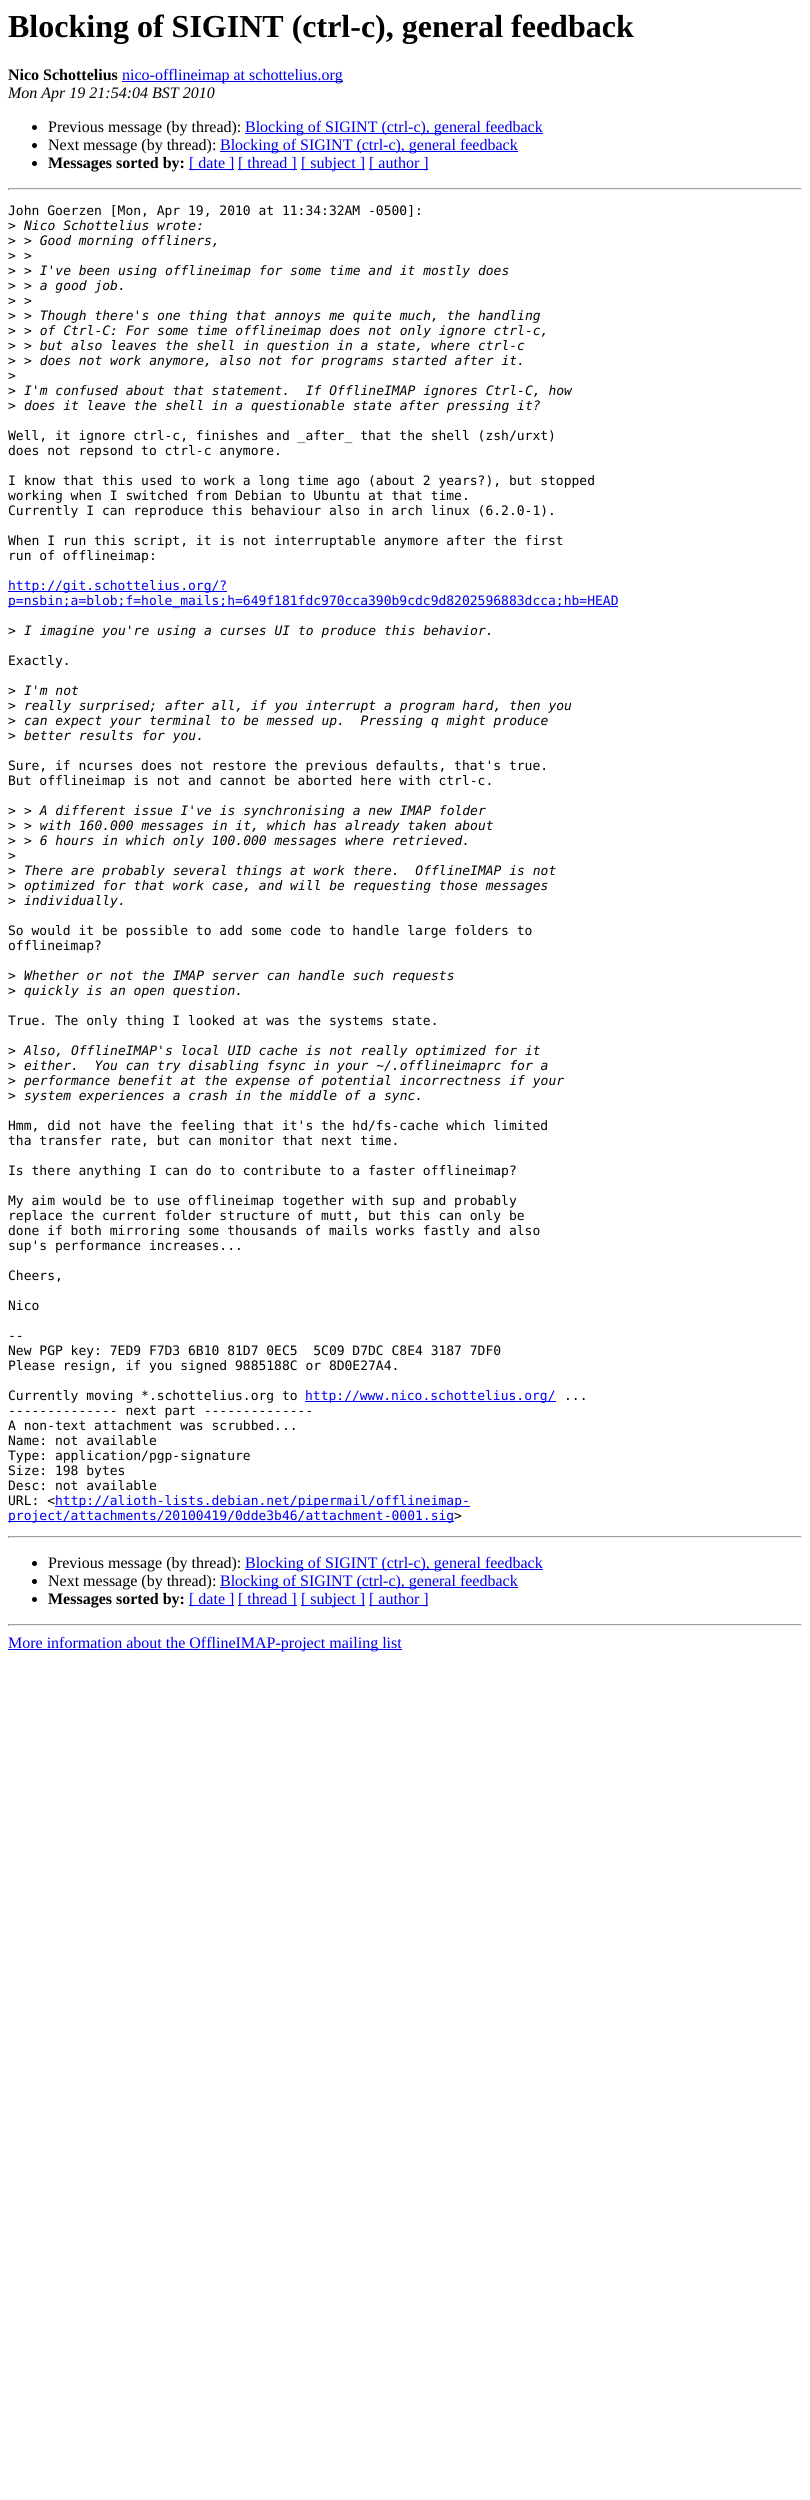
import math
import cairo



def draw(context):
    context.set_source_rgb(1, 1, 1)
    context.paint()
    context.set_source_rgb(0, 0, 238 / 255)
    context.rectangle(122, 81, 221, 1)
    context.fill()
    context.set_source_rgb(0, 0, 0)
    context.arc(34.5, 127.5, 2.5, 0, 2 * math.pi)
    context.fill()
    context.set_source_rgb(0, 0, 238 / 255)
    context.rectangle(245, 133, 298, 1)
    context.fill()
    context.set_source_rgb(0, 0, 0)
    context.arc(34.5, 145.5, 2.5, 0, 2 * math.pi)
    context.fill()
    context.set_source_rgb(0, 0, 238 / 255)
    context.rectangle(220, 151, 298, 1)
    context.fill()
    context.set_source_rgb(0, 0, 0)
    context.arc(34.5, 163.5, 2.5, 0, 2 * math.pi)
    context.fill()
    context.set_source_rgb(0, 0, 238 / 255)
    context.rectangle(189, 169, 45, 1)
    context.fill()
    context.rectangle(238, 169, 59, 1)
    context.fill()
    context.rectangle(301, 169, 64, 1)
    context.fill()
    context.rectangle(369, 169, 59, 1)
    context.fill()
    context.set_source_rgb(159 / 255, 159 / 255, 159 / 255)
    context.rectangle(8, 188, 794, 1)
    context.fill()
    context.set_source_rgb(238 / 255, 238 / 255, 238 / 255)
    context.rectangle(801, 188, 1, 2)
    context.fill()
    context.rectangle(8, 189, 794, 1)
    context.fill()
    context.set_source_rgb(159 / 255, 159 / 255, 159 / 255)
    context.rectangle(8, 188, 1, 2)
    context.fill()
    context.set_source_rgb(0, 0, 238 / 255)
    context.rectangle(8, 591, 219, 1)
    context.fill()
    context.rectangle(8, 606, 610, 1)
    context.fill()
    context.rectangle(305, 1401, 251, 1)
    context.fill()
    context.rectangle(55, 1506, 415, 1)
    context.fill()
    context.rectangle(8, 1521, 446, 1)
    context.fill()
    context.set_source_rgb(159 / 255, 159 / 255, 159 / 255)
    context.rectangle(8, 1536, 794, 1)
    context.fill()
    context.set_source_rgb(238 / 255, 238 / 255, 238 / 255)
    context.rectangle(801, 1536, 1, 2)
    context.fill()
    context.rectangle(8, 1537, 794, 1)
    context.fill()
    context.set_source_rgb(159 / 255, 159 / 255, 159 / 255)
    context.rectangle(8, 1536, 1, 2)
    context.fill()
    context.set_source_rgb(0, 0, 0)
    context.arc(34.5, 1563.5, 2.5, 0, 2 * math.pi)
    context.fill()
    context.set_source_rgb(0, 0, 238 / 255)
    context.rectangle(245, 1569, 298, 1)
    context.fill()
    context.set_source_rgb(0, 0, 0)
    context.arc(34.5, 1581.5, 2.5, 0, 2 * math.pi)
    context.fill()
    context.set_source_rgb(0, 0, 238 / 255)
    context.rectangle(220, 1587, 298, 1)
    context.fill()
    context.set_source_rgb(0, 0, 0)
    context.arc(34.5, 1599.5, 2.5, 0, 2 * math.pi)
    context.fill()
    context.set_source_rgb(0, 0, 238 / 255)
    context.rectangle(189, 1605, 45, 1)
    context.fill()
    context.rectangle(238, 1605, 59, 1)
    context.fill()
    context.rectangle(301, 1605, 64, 1)
    context.fill()
    context.rectangle(369, 1605, 59, 1)
    context.fill()
    context.set_source_rgb(159 / 255, 159 / 255, 159 / 255)
    context.rectangle(8, 1624, 794, 1)
    context.fill()
    context.set_source_rgb(238 / 255, 238 / 255, 238 / 255)
    context.rectangle(801, 1624, 1, 2)
    context.fill()
    context.rectangle(8, 1625, 794, 1)
    context.fill()
    context.set_source_rgb(159 / 255, 159 / 255, 159 / 255)
    context.rectangle(8, 1624, 1, 2)
    context.fill()
    context.set_source_rgb(0, 0, 238 / 255)
    context.rectangle(8, 1649, 394, 1)
    context.fill()
    context.select_font_face("Liberation Serif", cairo.FontSlant.NORMAL, cairo.FontWeight.BOLD)
    context.set_font_size(32)
    context.set_source_rgb(0, 0, 0)
    context.move_to(8, 37)
    context.show_text("Blocking of SIGINT (ctrl-c), general feedback")
    context.set_font_size(16)
    context.move_to(8, 80)
    context.show_text("Nico Schottelius")
    context.select_font_face("Liberation Serif")
    context.set_source_rgb(0, 0, 238 / 255)
    context.move_to(122, 80)
    context.show_text("nico-offlineimap at schottelius.org")
    context.select_font_face("Liberation Serif", cairo.FontSlant.ITALIC)
    context.set_source_rgb(0, 0, 0)
    context.move_to(8, 98)
    context.show_text("Mon Apr 19 21:54:04 BST 2010")
    context.select_font_face("Liberation Serif")
    context.move_to(48, 132)
    context.show_text("Previous message (by thread):")
    context.set_source_rgb(0, 0, 238 / 255)
    context.move_to(245, 132)
    context.show_text("Blocking of SIGINT (ctrl-c), general feedback")
    context.set_source_rgb(0, 0, 0)
    context.move_to(48, 150)
    context.show_text("Next message (by thread):")
    context.set_source_rgb(0, 0, 238 / 255)
    context.move_to(220, 150)
    context.show_text("Blocking of SIGINT (ctrl-c), general feedback")
    context.select_font_face("Liberation Serif", cairo.FontSlant.NORMAL, cairo.FontWeight.BOLD)
    context.set_source_rgb(0, 0, 0)
    context.move_to(48, 168)
    context.show_text("Messages sorted by:")
    context.select_font_face("Liberation Serif")
    context.set_source_rgb(0, 0, 238 / 255)
    context.move_to(189, 168)
    context.show_text("[ date ]")
    context.move_to(238, 168)
    context.show_text("[ thread ]")
    context.move_to(301, 168)
    context.show_text("[ subject ]")
    context.move_to(369, 168)
    context.show_text("[ author ]")
    context.select_font_face("DejaVu Sans Mono")
    context.set_font_size(13)
    context.set_source_rgb(0, 0, 0)
    context.move_to(8, 215)
    context.show_text("John Goerzen [Mon, Apr 19, 2010 at 11:34:32AM -0500]:")
    context.move_to(8, 230)
    context.show_text(">")
    context.select_font_face("DejaVu Sans Mono", cairo.FontSlant.ITALIC)
    context.move_to(24, 230)
    context.show_text("Nico Schottelius wrote:")
    context.select_font_face("DejaVu Sans Mono")
    context.move_to(8, 245)
    context.show_text(">")
    context.select_font_face("DejaVu Sans Mono", cairo.FontSlant.ITALIC)
    context.move_to(24, 245)
    context.show_text("> Good morning offliners,")
    context.select_font_face("DejaVu Sans Mono")
    context.move_to(8, 260)
    context.show_text(">")
    context.select_font_face("DejaVu Sans Mono", cairo.FontSlant.ITALIC)
    context.move_to(24, 260)
    context.show_text(">")
    context.select_font_face("DejaVu Sans Mono")
    context.move_to(8, 275)
    context.show_text(">")
    context.select_font_face("DejaVu Sans Mono", cairo.FontSlant.ITALIC)
    context.move_to(24, 275)
    context.show_text("> I've been using offlineimap for some time and it mostly does")
    context.select_font_face("DejaVu Sans Mono")
    context.move_to(8, 290)
    context.show_text(">")
    context.select_font_face("DejaVu Sans Mono", cairo.FontSlant.ITALIC)
    context.move_to(24, 290)
    context.show_text("> a good job.")
    context.select_font_face("DejaVu Sans Mono")
    context.move_to(8, 305)
    context.show_text(">")
    context.select_font_face("DejaVu Sans Mono", cairo.FontSlant.ITALIC)
    context.move_to(24, 305)
    context.show_text(">")
    context.select_font_face("DejaVu Sans Mono")
    context.move_to(8, 320)
    context.show_text(">")
    context.select_font_face("DejaVu Sans Mono", cairo.FontSlant.ITALIC)
    context.move_to(24, 320)
    context.show_text("> Though there's one thing that annoys me quite much, the handling")
    context.select_font_face("DejaVu Sans Mono")
    context.move_to(8, 335)
    context.show_text(">")
    context.select_font_face("DejaVu Sans Mono", cairo.FontSlant.ITALIC)
    context.move_to(24, 335)
    context.show_text("> of Ctrl-C: For some time offlineimap does not only ignore ctrl-c,")
    context.select_font_face("DejaVu Sans Mono")
    context.move_to(8, 350)
    context.show_text(">")
    context.select_font_face("DejaVu Sans Mono", cairo.FontSlant.ITALIC)
    context.move_to(24, 350)
    context.show_text("> but also leaves the shell in question in a state, where ctrl-c")
    context.select_font_face("DejaVu Sans Mono")
    context.move_to(8, 365)
    context.show_text(">")
    context.select_font_face("DejaVu Sans Mono", cairo.FontSlant.ITALIC)
    context.move_to(24, 365)
    context.show_text("> does not work anymore, also not for programs started after it.")
    context.select_font_face("DejaVu Sans Mono")
    context.move_to(8, 380)
    context.show_text(">")
    context.move_to(8, 395)
    context.show_text(">")
    context.select_font_face("DejaVu Sans Mono", cairo.FontSlant.ITALIC)
    context.move_to(24, 395)
    context.show_text("I'm confused about that statement.  If OfflineIMAP ignores Ctrl-C, how")
    context.select_font_face("DejaVu Sans Mono")
    context.move_to(8, 410)
    context.show_text(">")
    context.select_font_face("DejaVu Sans Mono", cairo.FontSlant.ITALIC)
    context.move_to(24, 410)
    context.show_text("does it leave the shell in a questionable state after pressing it?")
    context.select_font_face("DejaVu Sans Mono")
    context.move_to(8, 440)
    context.show_text("Well, it ignore ctrl-c, finishes and _after_ that the shell (zsh/urxt)")
    context.move_to(8, 455)
    context.show_text("does not repsond to ctrl-c anymore.")
    context.move_to(8, 485)
    context.show_text("I know that this used to work a long time ago (about 2 years?), but stopped")
    context.move_to(8, 500)
    context.show_text("working when I switched from Debian to Ubuntu at that time.")
    context.move_to(8, 515)
    context.show_text("Currently I can reproduce this behaviour also in arch linux (6.2.0-1).")
    context.move_to(8, 545)
    context.show_text("When I run this script, it is not interruptable anymore after the first")
    context.move_to(8, 560)
    context.show_text("run of offlineimap:")
    context.set_source_rgb(0, 0, 238 / 255)
    context.move_to(8, 590)
    context.show_text("http://git.schottelius.org/?")
    context.move_to(8, 605)
    context.show_text("p=nsbin;a=blob;f=hole_mails;h=649f181fdc970cca390b9cdc9d8202596883dcca;hb=HEAD")
    context.set_source_rgb(0, 0, 0)
    context.move_to(8, 635)
    context.show_text(">")
    context.select_font_face("DejaVu Sans Mono", cairo.FontSlant.ITALIC)
    context.move_to(24, 635)
    context.show_text("I imagine you're using a curses UI to produce this behavior.")
    context.select_font_face("DejaVu Sans Mono")
    context.move_to(8, 665)
    context.show_text("Exactly.")
    context.move_to(8, 695)
    context.show_text(">")
    context.select_font_face("DejaVu Sans Mono", cairo.FontSlant.ITALIC)
    context.move_to(24, 695)
    context.show_text("I'm not")
    context.select_font_face("DejaVu Sans Mono")
    context.move_to(8, 710)
    context.show_text(">")
    context.select_font_face("DejaVu Sans Mono", cairo.FontSlant.ITALIC)
    context.move_to(24, 710)
    context.show_text("really surprised; after all, if you interrupt a program hard, then you")
    context.select_font_face("DejaVu Sans Mono")
    context.move_to(8, 725)
    context.show_text(">")
    context.select_font_face("DejaVu Sans Mono", cairo.FontSlant.ITALIC)
    context.move_to(24, 725)
    context.show_text("can expect your terminal to be messed up.  Pressing q might produce")
    context.select_font_face("DejaVu Sans Mono")
    context.move_to(8, 740)
    context.show_text(">")
    context.select_font_face("DejaVu Sans Mono", cairo.FontSlant.ITALIC)
    context.move_to(24, 740)
    context.show_text("better results for you.")
    context.select_font_face("DejaVu Sans Mono")
    context.move_to(8, 770)
    context.show_text("Sure, if ncurses does not restore the previous defaults, that's true.")
    context.move_to(8, 785)
    context.show_text("But offlineimap is not and cannot be aborted here with ctrl-c.")
    context.move_to(8, 815)
    context.show_text(">")
    context.select_font_face("DejaVu Sans Mono", cairo.FontSlant.ITALIC)
    context.move_to(24, 815)
    context.show_text("> A different issue I've is synchronising a new IMAP folder")
    context.select_font_face("DejaVu Sans Mono")
    context.move_to(8, 830)
    context.show_text(">")
    context.select_font_face("DejaVu Sans Mono", cairo.FontSlant.ITALIC)
    context.move_to(24, 830)
    context.show_text("> with 160.000 messages in it, which has already taken about")
    context.select_font_face("DejaVu Sans Mono")
    context.move_to(8, 845)
    context.show_text(">")
    context.select_font_face("DejaVu Sans Mono", cairo.FontSlant.ITALIC)
    context.move_to(24, 845)
    context.show_text("> 6 hours in which only 100.000 messages where retrieved.")
    context.select_font_face("DejaVu Sans Mono")
    context.move_to(8, 860)
    context.show_text(">")
    context.move_to(8, 875)
    context.show_text(">")
    context.select_font_face("DejaVu Sans Mono", cairo.FontSlant.ITALIC)
    context.move_to(24, 875)
    context.show_text("There are probably several things at work there.  OfflineIMAP is not")
    context.select_font_face("DejaVu Sans Mono")
    context.move_to(8, 890)
    context.show_text(">")
    context.select_font_face("DejaVu Sans Mono", cairo.FontSlant.ITALIC)
    context.move_to(24, 890)
    context.show_text("optimized for that work case, and will be requesting those messages")
    context.select_font_face("DejaVu Sans Mono")
    context.move_to(8, 905)
    context.show_text(">")
    context.select_font_face("DejaVu Sans Mono", cairo.FontSlant.ITALIC)
    context.move_to(24, 905)
    context.show_text("individually.")
    context.select_font_face("DejaVu Sans Mono")
    context.move_to(8, 935)
    context.show_text("So would it be possible to add some code to handle large folders to")
    context.move_to(8, 950)
    context.show_text("offlineimap?")
    context.move_to(8, 980)
    context.show_text(">")
    context.select_font_face("DejaVu Sans Mono", cairo.FontSlant.ITALIC)
    context.move_to(24, 980)
    context.show_text("Whether or not the IMAP server can handle such requests")
    context.select_font_face("DejaVu Sans Mono")
    context.move_to(8, 995)
    context.show_text(">")
    context.select_font_face("DejaVu Sans Mono", cairo.FontSlant.ITALIC)
    context.move_to(24, 995)
    context.show_text("quickly is an open question.")
    context.select_font_face("DejaVu Sans Mono")
    context.move_to(8, 1025)
    context.show_text("True. The only thing I looked at was the systems state.")
    context.move_to(8, 1055)
    context.show_text(">")
    context.select_font_face("DejaVu Sans Mono", cairo.FontSlant.ITALIC)
    context.move_to(24, 1055)
    context.show_text("Also, OfflineIMAP's local UID cache is not really optimized for it")
    context.select_font_face("DejaVu Sans Mono")
    context.move_to(8, 1070)
    context.show_text(">")
    context.select_font_face("DejaVu Sans Mono", cairo.FontSlant.ITALIC)
    context.move_to(24, 1070)
    context.show_text("either.  You can try disabling fsync in your ~/.offlineimaprc for a")
    context.select_font_face("DejaVu Sans Mono")
    context.move_to(8, 1085)
    context.show_text(">")
    context.select_font_face("DejaVu Sans Mono", cairo.FontSlant.ITALIC)
    context.move_to(24, 1085)
    context.show_text("performance benefit at the expense of potential incorrectness if your")
    context.select_font_face("DejaVu Sans Mono")
    context.move_to(8, 1100)
    context.show_text(">")
    context.select_font_face("DejaVu Sans Mono", cairo.FontSlant.ITALIC)
    context.move_to(24, 1100)
    context.show_text("system experiences a crash in the middle of a sync.")
    context.select_font_face("DejaVu Sans Mono")
    context.move_to(8, 1130)
    context.show_text("Hmm, did not have the feeling that it's the hd/fs-cache which limited")
    context.move_to(8, 1145)
    context.show_text("tha transfer rate, but can monitor that next time.")
    context.move_to(8, 1175)
    context.show_text("Is there anything I can do to contribute to a faster offlineimap?")
    context.move_to(8, 1205)
    context.show_text("My aim would be to use offlineimap together with sup and probably")
    context.move_to(8, 1220)
    context.show_text("replace the current folder structure of mutt, but this can only be")
    context.move_to(8, 1235)
    context.show_text("done if both mirroring some thousands of mails works fastly and also")
    context.move_to(8, 1250)
    context.show_text("sup's performance increases...")
    context.move_to(8, 1280)
    context.show_text("Cheers,")
    context.move_to(8, 1310)
    context.show_text("Nico")
    context.move_to(8, 1340)
    context.show_text("--")
    context.move_to(8, 1355)
    context.show_text("New PGP key: 7ED9 F7D3 6B10 81D7 0EC5  5C09 D7DC C8E4 3187 7DF0")
    context.move_to(8, 1370)
    context.show_text("Please resign, if you signed 9885188C or 8D0E27A4.")
    context.move_to(8, 1400)
    context.show_text("Currently moving *.schottelius.org to")
    context.set_source_rgb(0, 0, 238 / 255)
    context.move_to(305, 1400)
    context.show_text("http://www.nico.schottelius.org/")
    context.set_source_rgb(0, 0, 0)
    context.move_to(564, 1400)
    context.show_text("...")
    context.move_to(8, 1415)
    context.show_text("-------------- next part --------------")
    context.move_to(8, 1430)
    context.show_text("A non-text attachment was scrubbed...")
    context.move_to(8, 1445)
    context.show_text("Name: not available")
    context.move_to(8, 1460)
    context.show_text("Type: application/pgp-signature")
    context.move_to(8, 1475)
    context.show_text("Size: 198 bytes")
    context.move_to(8, 1490)
    context.show_text("Desc: not available")
    context.move_to(8, 1505)
    context.show_text("URL: <")
    context.set_source_rgb(0, 0, 238 / 255)
    context.move_to(55, 1505)
    context.show_text("http://alioth-lists.debian.net/pipermail/offlineimap-")
    context.move_to(8, 1520)
    context.show_text("project/attachments/20100419/0dde3b46/attachment-0001.sig")
    context.set_source_rgb(0, 0, 0)
    context.move_to(454, 1520)
    context.show_text(">")
    context.select_font_face("Liberation Serif")
    context.set_font_size(16)
    context.move_to(48, 1568)
    context.show_text("Previous message (by thread):")
    context.set_source_rgb(0, 0, 238 / 255)
    context.move_to(245, 1568)
    context.show_text("Blocking of SIGINT (ctrl-c), general feedback")
    context.set_source_rgb(0, 0, 0)
    context.move_to(48, 1586)
    context.show_text("Next message (by thread):")
    context.set_source_rgb(0, 0, 238 / 255)
    context.move_to(220, 1586)
    context.show_text("Blocking of SIGINT (ctrl-c), general feedback")
    context.select_font_face("Liberation Serif", cairo.FontSlant.NORMAL, cairo.FontWeight.BOLD)
    context.set_source_rgb(0, 0, 0)
    context.move_to(48, 1604)
    context.show_text("Messages sorted by:")
    context.select_font_face("Liberation Serif")
    context.set_source_rgb(0, 0, 238 / 255)
    context.move_to(189, 1604)
    context.show_text("[ date ]")
    context.move_to(238, 1604)
    context.show_text("[ thread ]")
    context.move_to(301, 1604)
    context.show_text("[ subject ]")
    context.move_to(369, 1604)
    context.show_text("[ author ]")
    context.move_to(8, 1648)
    context.show_text("More information about the OfflineIMAP-project mailing list")


surface = cairo.ImageSurface(cairo.Format.RGB24, 810, 2500)
context = cairo.Context(surface)
options = cairo.FontOptions()
options.set_hint_metrics(cairo.HintMetrics.OFF)
options.set_hint_style(cairo.HintStyle.NONE)
context.set_font_options(options)
context.set_miter_limit(4)
draw(context)
surface.write_to_png("out.png")
